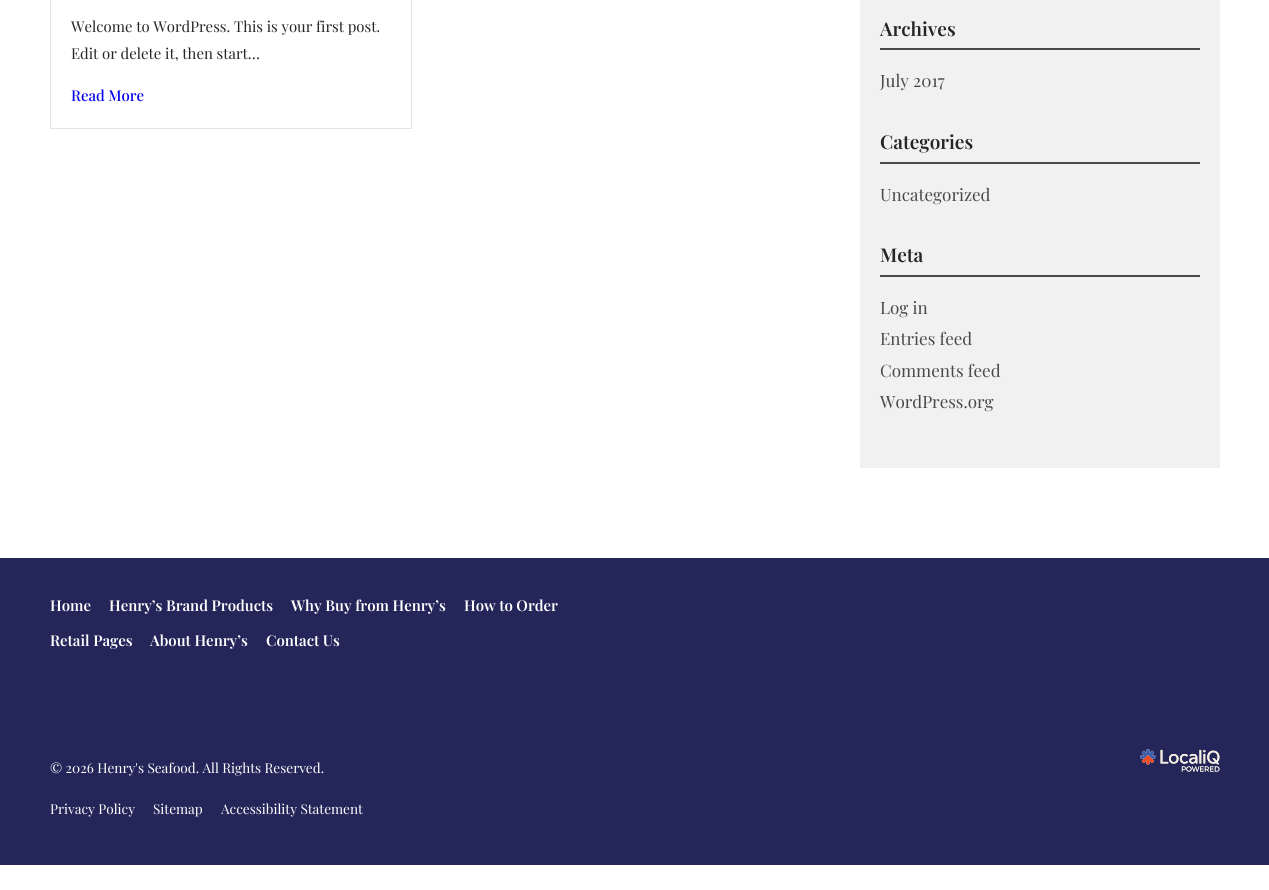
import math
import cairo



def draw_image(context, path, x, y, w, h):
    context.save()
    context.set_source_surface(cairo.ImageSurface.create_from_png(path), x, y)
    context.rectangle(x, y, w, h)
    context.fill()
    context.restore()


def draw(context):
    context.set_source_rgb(1, 1, 1)
    context.paint()
    context.rectangle(50.5, -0.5, 361, 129)
    context.set_source_rgb(228 / 255, 228 / 255, 228 / 255)
    context.set_line_width(1)
    context.stroke()
    context.set_source_rgb(241 / 255, 241 / 255, 241 / 255)
    context.rectangle(860, 0, 360, 468)
    context.fill()
    context.set_source_rgb(73 / 255, 73 / 255, 73 / 255)
    context.rectangle(880, 48, 320, 2)
    context.fill()
    context.rectangle(880, 162, 320, 2)
    context.fill()
    context.rectangle(880, 275, 320, 2)
    context.fill()
    context.set_source_rgb(36 / 255, 38 / 255, 90 / 255)
    context.rectangle(0, 558, 1269, 307)
    context.fill()
    draw_image(context, "images/1.png", 1140, 749, 80, 23)
    context.select_font_face("Playfair Display")
    context.set_font_size(14.9)
    context.set_source_rgb(37 / 255, 37 / 255, 37 / 255)
    context.move_to(71, 32)
    context.show_text("Welcome to WordPress. This is your first post.")
    context.move_to(71, 59)
    context.show_text("Edit or delete it, then start…")
    context.select_font_face("Playfair Display Medium")
    context.set_source_rgb(0, 0, 238 / 255)
    context.move_to(71, 101)
    context.show_text("Read More")
    context.select_font_face("Playfair Display SemiBold")
    context.set_font_size(19)
    context.set_source_rgb(37 / 255, 37 / 255, 37 / 255)
    context.move_to(880, 36)
    context.show_text("Archives")
    context.select_font_face("Playfair Display")
    context.set_font_size(17)
    context.set_source_rgb(73 / 255, 73 / 255, 73 / 255)
    context.move_to(880, 87)
    context.show_text("July 2017")
    context.select_font_face("Playfair Display SemiBold")
    context.set_font_size(19)
    context.set_source_rgb(37 / 255, 37 / 255, 37 / 255)
    context.move_to(880, 149)
    context.show_text("Categories")
    context.select_font_face("Playfair Display")
    context.set_font_size(17)
    context.set_source_rgb(73 / 255, 73 / 255, 73 / 255)
    context.move_to(880, 201)
    context.show_text("Uncategorized")
    context.select_font_face("Playfair Display SemiBold")
    context.set_font_size(19)
    context.set_source_rgb(37 / 255, 37 / 255, 37 / 255)
    context.move_to(880, 262)
    context.show_text("Meta")
    context.select_font_face("Playfair Display")
    context.set_font_size(17)
    context.set_source_rgb(73 / 255, 73 / 255, 73 / 255)
    context.move_to(880, 314)
    context.show_text("Log in")
    context.move_to(880, 345)
    context.show_text("Entries feed")
    context.move_to(880, 377)
    context.show_text("Comments feed")
    context.move_to(880, 408)
    context.show_text("WordPress.org")
    context.select_font_face("Playfair Display SemiBold")
    context.set_font_size(14.9)
    context.set_source_rgb(1, 1, 1)
    context.move_to(50, 611)
    context.show_text("Home")
    context.move_to(109, 611)
    context.show_text("Henry’s Brand Products")
    context.move_to(291, 611)
    context.show_text("Why Buy from Henry’s")
    context.move_to(464, 611)
    context.show_text("How to Order")
    context.move_to(50, 646)
    context.show_text("Retail Pages")
    context.move_to(150, 646)
    context.show_text("About Henry’s")
    context.move_to(266, 646)
    context.show_text("Contact Us")
    context.select_font_face("Playfair Display")
    context.set_font_size(13.6)
    context.move_to(50, 773)
    context.show_text("© 2026 Henry's Seafood. All Rights Reserved.")
    context.move_to(50, 814)
    context.show_text("Privacy Policy")
    context.move_to(153, 814)
    context.show_text("Sitemap")
    context.move_to(221, 814)
    context.show_text("Accessibility Statement")


surface = cairo.ImageSurface(cairo.Format.RGB24, 1269, 890)
context = cairo.Context(surface)
options = cairo.FontOptions()
options.set_hint_metrics(cairo.HintMetrics.OFF)
options.set_hint_style(cairo.HintStyle.NONE)
context.set_font_options(options)
context.set_miter_limit(4)
draw(context)
surface.write_to_png("out.png")
